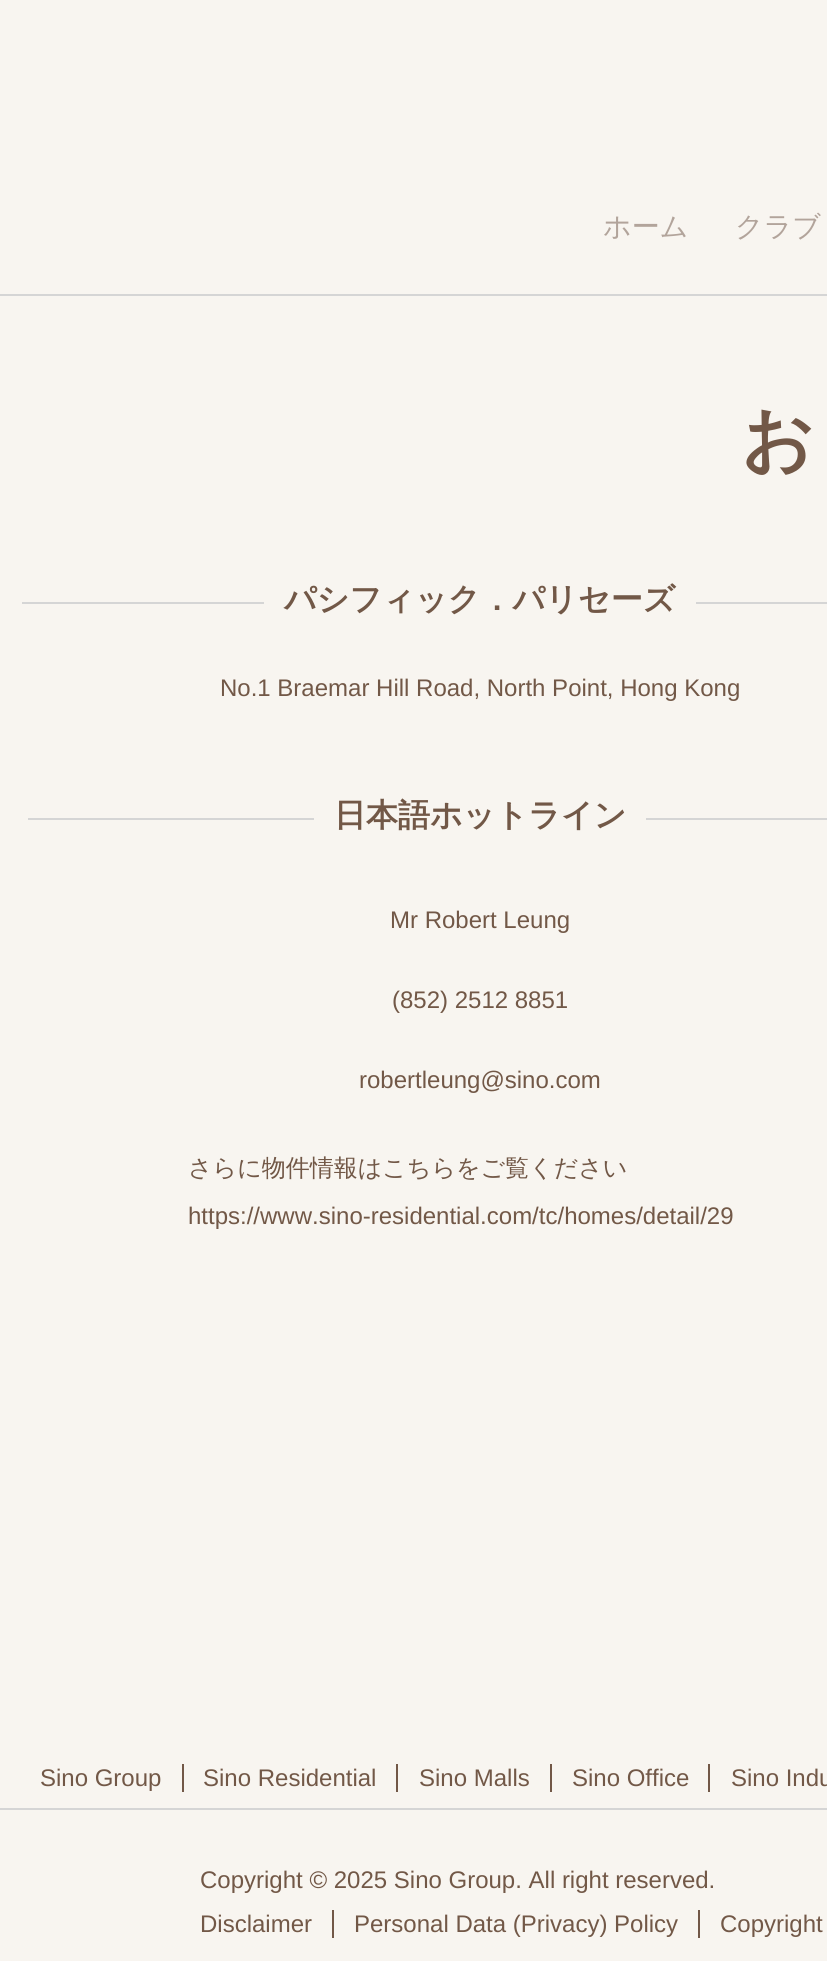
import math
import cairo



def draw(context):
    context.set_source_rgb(248 / 255, 245 / 255, 240 / 255)
    context.paint()
    context.set_source_rgb(213 / 255, 213 / 255, 213 / 255)
    context.rectangle(0, 294, 827, 2)
    context.fill()
    context.rectangle(22, 602, 242, 2)
    context.fill()
    context.rectangle(696, 602, 131, 2)
    context.fill()
    context.rectangle(28, 818, 286, 2)
    context.fill()
    context.rectangle(646, 818, 181, 2)
    context.fill()
    context.rectangle(0, 1808, 827, 2)
    context.fill()
    context.set_source_rgb(114 / 255, 88 / 255, 71 / 255)
    context.rectangle(182, 1764, 2, 28)
    context.fill()
    context.rectangle(396, 1764, 2, 28)
    context.fill()
    context.rectangle(550, 1764, 2, 28)
    context.fill()
    context.rectangle(708, 1764, 2, 28)
    context.fill()
    context.rectangle(332, 1910, 2, 28)
    context.fill()
    context.rectangle(698, 1910, 2, 28)
    context.fill()
    context.select_font_face("WenQuanYi Zen Hei Medium")
    context.set_font_size(28)
    context.set_source_rgb(178 / 255, 164 / 255, 155 / 255)
    context.move_to(603, 236)
    context.show_text("ホーム")
    context.move_to(735, 236)
    context.show_text("クラブ")
    context.select_font_face("WenQuanYi Zen Hei", cairo.FontSlant.NORMAL, cairo.FontWeight.BOLD)
    context.set_font_size(72)
    context.set_source_rgb(114 / 255, 88 / 255, 71 / 255)
    context.move_to(741, 464)
    context.show_text("お")
    context.set_font_size(32)
    context.move_to(284, 610)
    context.show_text("パシフィック．パリセーズ")
    context.select_font_face("Liberation Sans")
    context.set_font_size(24)
    context.move_to(220, 696)
    context.show_text("No.1 Braemar Hill Road, North Point, Hong Kong")
    context.select_font_face("WenQuanYi Zen Hei", cairo.FontSlant.NORMAL, cairo.FontWeight.BOLD)
    context.set_font_size(32)
    context.move_to(334, 826)
    context.show_text("日本語ホットライン")
    context.select_font_face("Liberation Sans")
    context.set_font_size(24)
    context.move_to(390, 928)
    context.show_text("Mr Robert Leung")
    context.move_to(392, 1008)
    context.show_text("(852) 2512 8851")
    context.move_to(359, 1088)
    context.show_text("robertleung@sino.com")
    context.select_font_face("WenQuanYi Zen Hei Medium")
    context.move_to(188, 1176)
    context.show_text("さらに物件情報はこちらをご覧ください")
    context.select_font_face("Liberation Sans")
    context.move_to(188, 1224)
    context.show_text("https://www.sino-residential.com/tc/homes/detail/29")
    context.move_to(40, 1786)
    context.show_text("Sino Group")
    context.move_to(203, 1786)
    context.show_text("Sino Residential")
    context.move_to(419, 1786)
    context.show_text("Sino Malls")
    context.move_to(572, 1786)
    context.show_text("Sino Office")
    context.move_to(731, 1786)
    context.show_text("Sino Indu")
    context.move_to(200, 1888)
    context.show_text("Copyright © 2025 Sino Group. All right reserved.")
    context.move_to(200, 1932)
    context.show_text("Disclaimer")
    context.move_to(354, 1932)
    context.show_text("Personal Data (Privacy) Policy")
    context.move_to(720, 1932)
    context.show_text("Copyright")


surface = cairo.ImageSurface(cairo.Format.RGB24, 827, 1961)
context = cairo.Context(surface)
options = cairo.FontOptions()
options.set_hint_metrics(cairo.HintMetrics.OFF)
options.set_hint_style(cairo.HintStyle.NONE)
context.set_font_options(options)
context.set_miter_limit(4)
draw(context)
surface.write_to_png("out.png")
